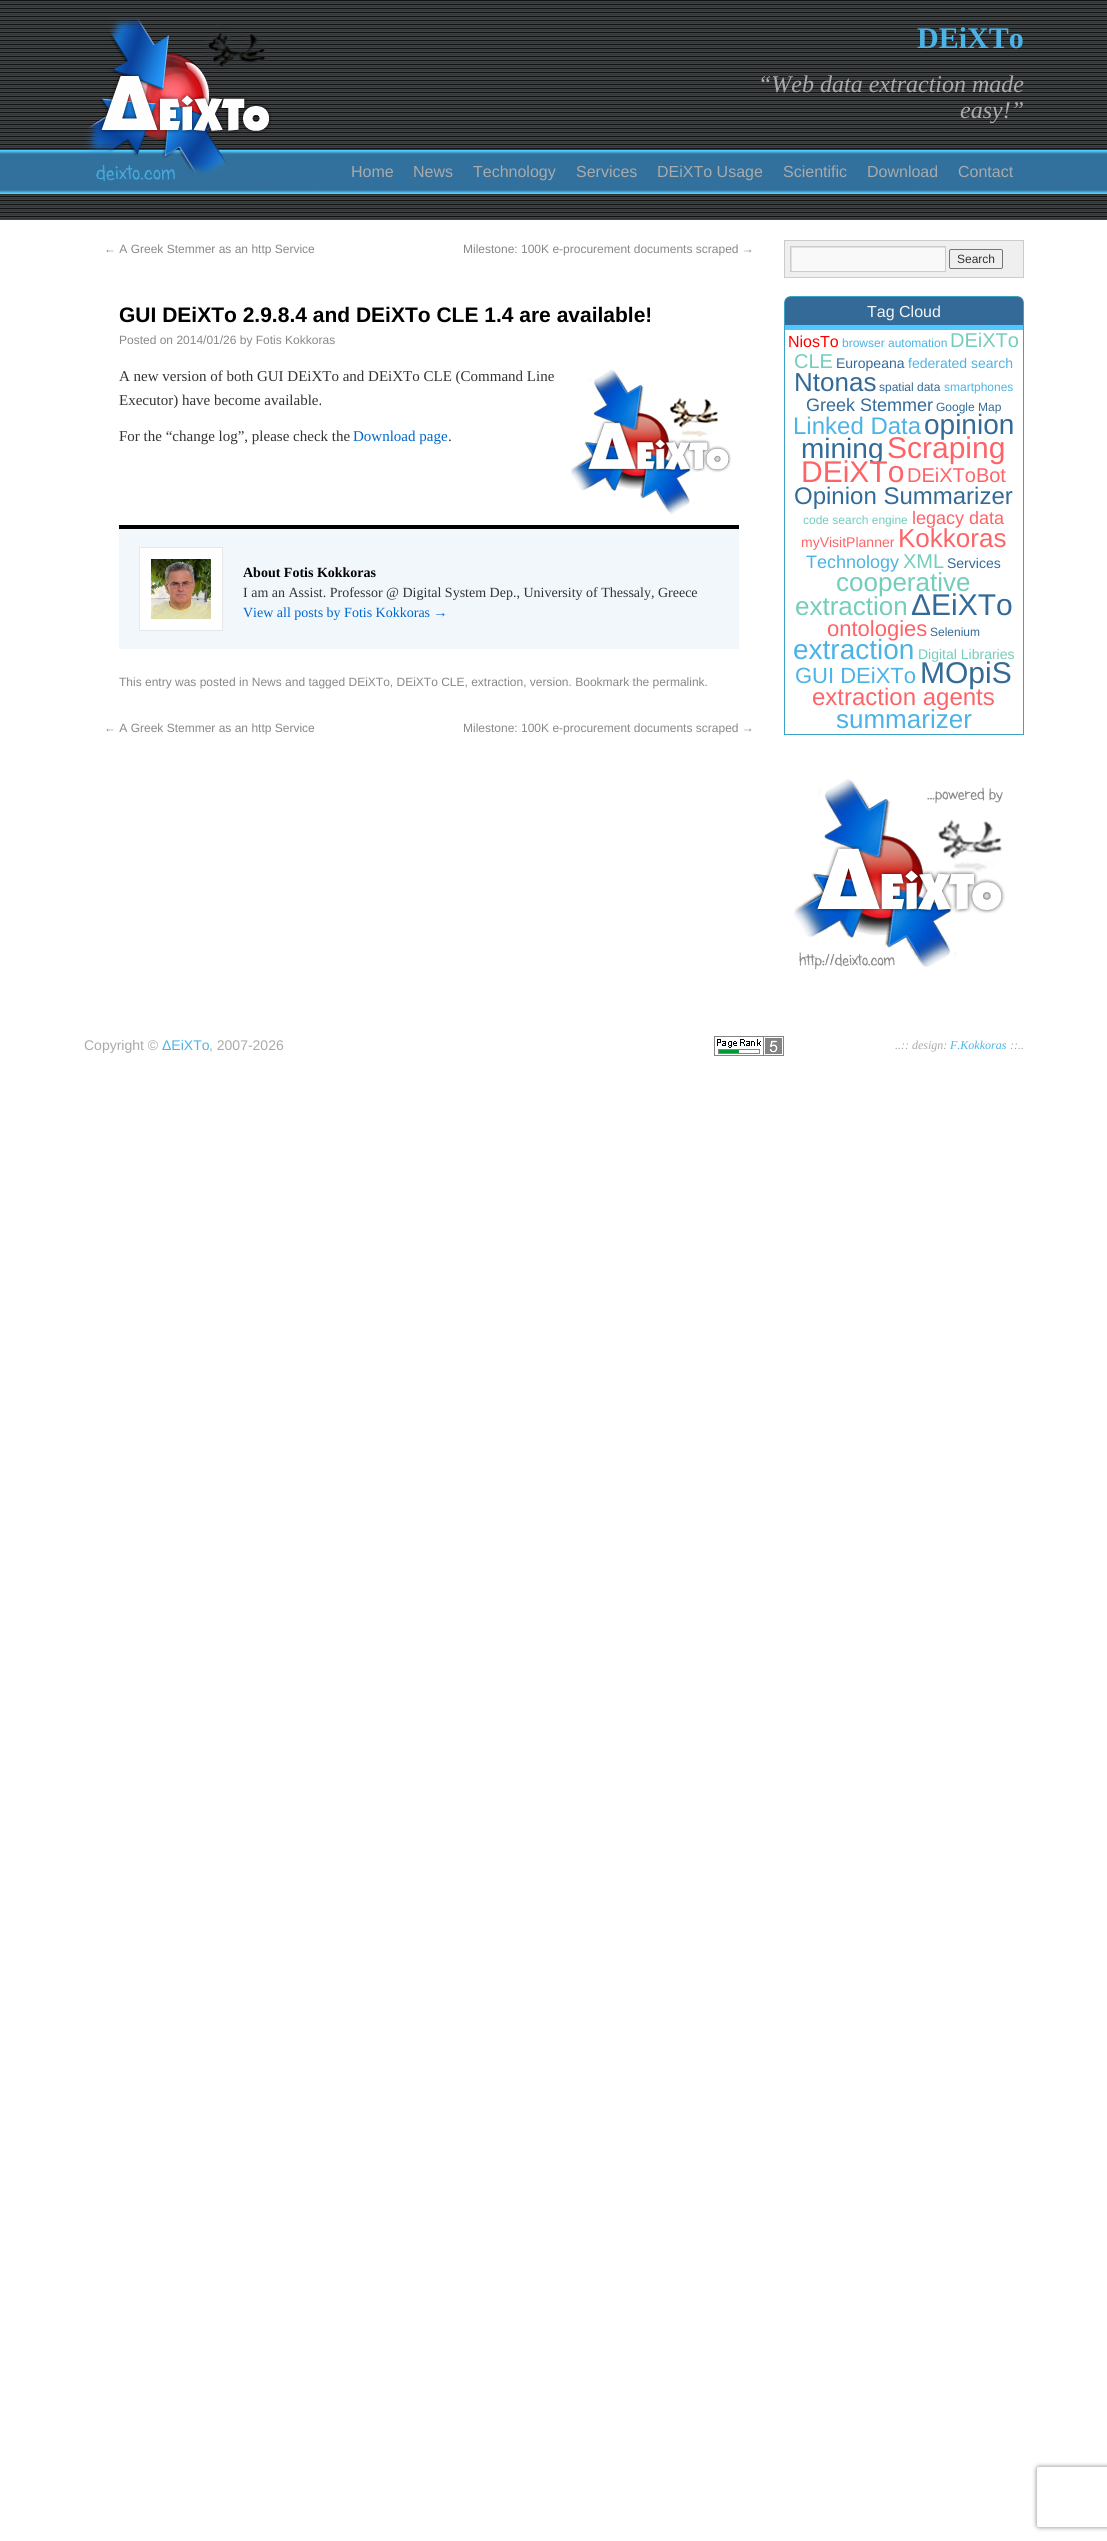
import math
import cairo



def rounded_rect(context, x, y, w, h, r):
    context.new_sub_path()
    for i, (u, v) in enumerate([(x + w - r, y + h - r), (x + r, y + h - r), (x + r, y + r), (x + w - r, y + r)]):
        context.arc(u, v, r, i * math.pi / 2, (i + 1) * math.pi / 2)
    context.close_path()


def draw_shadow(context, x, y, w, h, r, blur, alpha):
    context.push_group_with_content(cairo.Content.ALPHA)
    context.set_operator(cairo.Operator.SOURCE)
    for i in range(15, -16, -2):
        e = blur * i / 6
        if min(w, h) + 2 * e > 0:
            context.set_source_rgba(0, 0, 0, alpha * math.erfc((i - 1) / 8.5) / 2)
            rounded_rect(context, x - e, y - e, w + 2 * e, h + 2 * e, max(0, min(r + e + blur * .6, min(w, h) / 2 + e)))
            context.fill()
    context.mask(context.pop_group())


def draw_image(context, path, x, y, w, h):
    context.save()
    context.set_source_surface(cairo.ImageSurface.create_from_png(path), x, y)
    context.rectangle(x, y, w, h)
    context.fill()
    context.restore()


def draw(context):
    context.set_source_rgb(1, 1, 1)
    context.paint()
    draw_image(context, "images/1.png", 0, 0, 1107, 220)
    draw_image(context, "images/2.png", 84, 16, 188, 165)
    draw_image(context, "images/3.png", 571, 369, 160, 145)
    context.set_source_rgb(242 / 255, 247 / 255, 252 / 255)
    context.rectangle(119, 529, 620, 120)
    context.fill()
    context.set_source_rgb(0, 0, 0)
    context.rectangle(119, 525, 620, 4)
    context.fill()
    context.set_source_rgb(1, 1, 1)
    context.rectangle(139.5, 547.5, 83, 83)
    context.fill_preserve()
    context.set_source_rgb(231 / 255, 231 / 255, 231 / 255)
    context.set_line_width(1)
    context.stroke()
    draw_image(context, "images/4.png", 151, 559, 60, 60)
    context.set_source_rgb(239 / 255, 239 / 255, 239 / 255)
    context.rectangle(784.5, 240.5, 239, 37)
    context.fill_preserve()
    context.set_source_rgb(204 / 255, 204 / 255, 204 / 255)
    context.stroke()
    context.set_source_rgb(249 / 255, 249 / 255, 249 / 255)
    context.rectangle(792, 248, 153, 23)
    context.fill()
    context.save()
    context.rectangle(791, 247, 154, 24)
    context.clip()
    context.set_source_rgb(224 / 255, 224 / 255, 224 / 255)
    context.set_fill_rule(cairo.FillRule.EVEN_ODD)
    context.new_path()
    context.move_to(692, 148)
    context.line_to(1044, 148)
    context.line_to(1044, 370)
    context.line_to(692, 370)
    context.close_path()
    context.move_to(792, 248)
    context.line_to(946, 248)
    context.line_to(946, 272)
    context.line_to(792, 272)
    context.close_path()
    context.fill()
    context.restore()
    context.rectangle(790.5, 246.5, 155, 25)
    context.set_source_rgb(204 / 255, 204 / 255, 204 / 255)
    context.stroke()
    rounded_rect(context, 949.5, 249.5, 53, 19, 1.5)
    context.set_source_rgb(118 / 255, 118 / 255, 118 / 255)
    context.stroke()
    context.new_path()
    context.move_to(791, 296.5)
    context.line_to(1017, 296.5)
    context.curve_to(1020.5, 296.5, 1023.5, 299.5, 1023.5, 303)
    context.line_to(1023.5, 734.5)
    context.line_to(784.5, 734.5)
    context.line_to(784.5, 303)
    context.curve_to(784.5, 299.5, 787.5, 296.5, 791, 296.5)
    context.close_path()
    context.set_source_rgb(60 / 255, 162 / 255, 198 / 255)
    context.stroke()
    context.set_source_rgb(51 / 255, 106 / 255, 152 / 255)
    context.new_path()
    context.move_to(790, 297)
    context.line_to(1018, 297)
    context.curve_to(1021, 297, 1023, 299, 1023, 302)
    context.line_to(1023, 330)
    context.line_to(785, 330)
    context.line_to(785, 302)
    context.curve_to(785, 299, 787, 297, 790, 297)
    context.close_path()
    context.fill()
    context.set_source_rgb(81 / 255, 199 / 255, 1)
    context.rectangle(785, 325, 238, 5)
    context.fill()
    draw_image(context, "images/5.png", 794, 779, 211, 191)
    draw_image(context, "images/6.png", 714, 1036, 70, 20)
    context.save()
    context.set_fill_rule(cairo.FillRule.EVEN_ODD)
    context.new_path()
    context.move_to(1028, 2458)
    context.line_to(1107, 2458)
    context.line_to(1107, 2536)
    context.line_to(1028, 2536)
    context.close_path()
    context.move_to(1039, 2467)
    context.line_to(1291, 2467)
    context.curve_to(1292, 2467, 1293, 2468, 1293, 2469)
    context.line_to(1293, 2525)
    context.curve_to(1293, 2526, 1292, 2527, 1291, 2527)
    context.line_to(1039, 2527)
    context.curve_to(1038, 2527, 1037, 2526, 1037, 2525)
    context.line_to(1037, 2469)
    context.curve_to(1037, 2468, 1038, 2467, 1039, 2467)
    context.close_path()
    context.clip()
    context.set_source_rgb(128 / 255, 128 / 255, 128 / 255)
    draw_shadow(context, 1037, 2467, 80, 60, 2, 2.5, 1)
    context.restore()
    context.select_font_face("Liberation Serif", cairo.FontSlant.NORMAL, cairo.FontWeight.BOLD)
    context.set_font_size(30)
    context.set_source_rgb(75 / 255, 179 / 255, 230 / 255)
    context.move_to(917, 48)
    context.show_text("DEiXTo")
    context.select_font_face("Liberation Serif", cairo.FontSlant.ITALIC)
    context.set_font_size(24)
    context.set_source_rgb(170 / 255, 170 / 255, 170 / 255)
    context.move_to(758, 92)
    context.show_text("“Web data extraction made")
    context.move_to(960, 118)
    context.show_text("easy!”")
    context.select_font_face("Liberation Sans")
    context.set_font_size(16)
    context.move_to(351, 177)
    context.show_text("Home")
    context.move_to(413, 177)
    context.show_text("News")
    context.move_to(473, 177)
    context.show_text("Technology")
    context.move_to(576, 177)
    context.show_text("Services")
    context.move_to(657, 177)
    context.show_text("DEiXTo Usage")
    context.move_to(783, 177)
    context.show_text("Scientific")
    context.move_to(867, 177)
    context.show_text("Download")
    context.move_to(958, 177)
    context.show_text("Contact")
    context.set_font_size(12)
    context.set_source_rgb(136 / 255, 136 / 255, 136 / 255)
    context.move_to(104, 253)
    context.show_text("← A Greek Stemmer as an http Service")
    context.move_to(463, 253)
    context.show_text("Milestone: 100K e-procurement documents scraped →")
    context.select_font_face("Liberation Sans", cairo.FontSlant.NORMAL, cairo.FontWeight.BOLD)
    context.set_font_size(21)
    context.set_source_rgb(0, 0, 0)
    context.move_to(119, 322)
    context.show_text("GUI DEiXTo 2.9.8.4 and DEiXTo CLE 1.4 are available!")
    context.select_font_face("Liberation Sans")
    context.set_font_size(12)
    context.set_source_rgb(136 / 255, 136 / 255, 136 / 255)
    context.move_to(119, 344)
    context.show_text("Posted on 2014/01/26 by Fotis Kokkoras")
    context.select_font_face("Liberation Serif")
    context.set_font_size(15)
    context.set_source_rgb(51 / 255, 51 / 255, 51 / 255)
    context.move_to(119, 381)
    context.show_text("A new version of both GUI DEiXTo and DEiXTo CLE (Command Line")
    context.move_to(119, 405)
    context.show_text("Executor) have become available.")
    context.move_to(119, 441)
    context.show_text("For the “change log”, please check the")
    context.set_source_rgb(0, 102 / 255, 204 / 255)
    context.move_to(353, 441)
    context.show_text("Download page")
    context.set_source_rgb(51 / 255, 51 / 255, 51 / 255)
    context.move_to(448, 441)
    context.show_text(".")
    context.select_font_face("Liberation Serif", cairo.FontSlant.NORMAL, cairo.FontWeight.BOLD)
    context.set_font_size(14)
    context.set_source_rgb(0, 0, 0)
    context.move_to(243, 577)
    context.show_text("About Fotis Kokkoras")
    context.select_font_face("Liberation Serif")
    context.set_source_rgb(51 / 255, 51 / 255, 51 / 255)
    context.move_to(243, 597)
    context.show_text("I am an Assist. Professor @ Digital System Dep., University of Thessaly, Greece")
    context.set_source_rgb(0, 102 / 255, 204 / 255)
    context.move_to(243, 617)
    context.show_text("View all posts by Fotis Kokkoras →")
    context.select_font_face("Liberation Sans")
    context.set_font_size(12)
    context.set_source_rgb(136 / 255, 136 / 255, 136 / 255)
    context.move_to(119, 686)
    context.show_text("This entry was posted in News and tagged DEiXTo, DEiXTo CLE, extraction, version. Bookmark the permalink.")
    context.move_to(104, 732)
    context.show_text("← A Greek Stemmer as an http Service")
    context.move_to(463, 732)
    context.show_text("Milestone: 100K e-procurement documents scraped →")
    context.set_source_rgb(51 / 255, 51 / 255, 51 / 255)
    context.move_to(957, 263)
    context.show_text("Search")
    context.set_font_size(16)
    context.set_source_rgb(245 / 255, 245 / 255, 245 / 255)
    context.move_to(867, 317)
    context.show_text("Tag Cloud")
    context.set_source_rgb(1, 0, 0)
    context.move_to(788, 347)
    context.show_text("NiosTo")
    context.set_font_size(12)
    context.set_source_rgb(75 / 255, 179 / 255, 230 / 255)
    context.move_to(842, 347)
    context.show_text("browser automation")
    context.set_font_size(20)
    context.set_source_rgb(116 / 255, 205 / 255, 187 / 255)
    context.move_to(950, 347)
    context.show_text("DEiXTo")
    context.move_to(794, 368)
    context.show_text("CLE")
    context.set_font_size(14)
    context.set_source_rgb(51 / 255, 106 / 255, 152 / 255)
    context.move_to(836, 368)
    context.show_text("Europeana")
    context.set_source_rgb(75 / 255, 179 / 255, 230 / 255)
    context.move_to(908, 368)
    context.show_text("federated search")
    context.set_font_size(26)
    context.set_source_rgb(51 / 255, 106 / 255, 152 / 255)
    context.move_to(794, 391)
    context.show_text("Ntonas")
    context.set_font_size(12)
    context.move_to(879, 391)
    context.show_text("spatial data")
    context.set_source_rgb(75 / 255, 179 / 255, 230 / 255)
    context.move_to(944, 391)
    context.show_text("smartphones")
    context.set_font_size(18)
    context.set_source_rgb(51 / 255, 106 / 255, 152 / 255)
    context.move_to(806, 411)
    context.show_text("Greek Stemmer")
    context.set_font_size(12)
    context.move_to(936, 411)
    context.show_text("Google Map")
    context.set_font_size(24)
    context.set_source_rgb(75 / 255, 179 / 255, 230 / 255)
    context.move_to(793, 434)
    context.show_text("Linked Data")
    context.set_font_size(28)
    context.set_source_rgb(51 / 255, 106 / 255, 152 / 255)
    context.move_to(924, 434)
    context.show_text("opinion")
    context.move_to(801, 458)
    context.show_text("mining")
    context.set_font_size(30)
    context.set_source_rgb(253 / 255, 100 / 255, 104 / 255)
    context.move_to(887, 458)
    context.show_text("Scraping")
    context.move_to(801, 482)
    context.show_text("DEiXTo")
    context.set_font_size(20)
    context.move_to(907, 482)
    context.show_text("DEiXToBot")
    context.set_font_size(24)
    context.set_source_rgb(51 / 255, 106 / 255, 152 / 255)
    context.move_to(794, 504)
    context.show_text("Opinion Summarizer")
    context.set_font_size(12)
    context.set_source_rgb(116 / 255, 205 / 255, 187 / 255)
    context.move_to(803, 524)
    context.show_text("code search engine")
    context.set_font_size(18)
    context.set_source_rgb(253 / 255, 100 / 255, 104 / 255)
    context.move_to(912, 524)
    context.show_text("legacy data")
    context.set_font_size(14)
    context.move_to(801, 547)
    context.show_text("myVisitPlanner")
    context.set_font_size(26)
    context.move_to(898, 547)
    context.show_text("Kokkoras")
    context.set_font_size(18)
    context.set_source_rgb(75 / 255, 179 / 255, 230 / 255)
    context.move_to(806, 568)
    context.show_text("Technology")
    context.set_font_size(20)
    context.set_source_rgb(116 / 255, 205 / 255, 187 / 255)
    context.move_to(903, 568)
    context.show_text("XML")
    context.set_font_size(14)
    context.set_source_rgb(51 / 255, 106 / 255, 152 / 255)
    context.move_to(947, 568)
    context.show_text("Services")
    context.set_font_size(26)
    context.set_source_rgb(116 / 255, 205 / 255, 187 / 255)
    context.move_to(836, 591)
    context.show_text("cooperative")
    context.move_to(795, 615)
    context.show_text("extraction")
    context.set_font_size(30)
    context.set_source_rgb(51 / 255, 106 / 255, 152 / 255)
    context.move_to(911, 615)
    context.show_text("ΔEiXTo")
    context.set_font_size(22)
    context.set_source_rgb(253 / 255, 100 / 255, 104 / 255)
    context.move_to(827, 636)
    context.show_text("ontologies")
    context.set_font_size(12)
    context.set_source_rgb(51 / 255, 106 / 255, 152 / 255)
    context.move_to(930, 636)
    context.show_text("Selenium")
    context.set_font_size(28)
    context.set_source_rgb(75 / 255, 179 / 255, 230 / 255)
    context.move_to(793, 659)
    context.show_text("extraction")
    context.set_font_size(14)
    context.set_source_rgb(116 / 255, 205 / 255, 187 / 255)
    context.move_to(918, 659)
    context.show_text("Digital Libraries")
    context.set_font_size(22)
    context.set_source_rgb(75 / 255, 179 / 255, 230 / 255)
    context.move_to(795, 683)
    context.show_text("GUI DEiXTo")
    context.set_font_size(30)
    context.set_source_rgb(51 / 255, 106 / 255, 152 / 255)
    context.move_to(920, 683)
    context.show_text("MOpiS")
    context.set_font_size(24)
    context.set_source_rgb(253 / 255, 100 / 255, 104 / 255)
    context.move_to(812, 705)
    context.show_text("extraction agents")
    context.set_font_size(26)
    context.set_source_rgb(75 / 255, 179 / 255, 230 / 255)
    context.move_to(836, 728)
    context.show_text("summarizer")
    context.set_font_size(14)
    context.set_source_rgb(170 / 255, 170 / 255, 170 / 255)
    context.move_to(84, 1050)
    context.show_text("Copyright ©")
    context.set_source_rgb(75 / 255, 179 / 255, 230 / 255)
    context.move_to(162, 1050)
    context.show_text("ΔEiXTo")
    context.set_source_rgb(170 / 255, 170 / 255, 170 / 255)
    context.move_to(209, 1050)
    context.show_text(", 2007-2026")
    context.select_font_face("Liberation Serif", cairo.FontSlant.ITALIC)
    context.set_font_size(12)
    context.move_to(895, 1049)
    context.show_text("..:: design:")
    context.set_source_rgb(75 / 255, 179 / 255, 230 / 255)
    context.move_to(950, 1049)
    context.show_text("F.Kokkoras")
    context.set_source_rgb(170 / 255, 170 / 255, 170 / 255)
    context.move_to(1010, 1049)
    context.show_text("::..")


surface = cairo.ImageSurface(cairo.Format.RGB24, 1107, 2541)
context = cairo.Context(surface)
options = cairo.FontOptions()
options.set_hint_metrics(cairo.HintMetrics.OFF)
options.set_hint_style(cairo.HintStyle.NONE)
context.set_font_options(options)
context.set_miter_limit(4)
draw(context)
surface.write_to_png("out.png")
